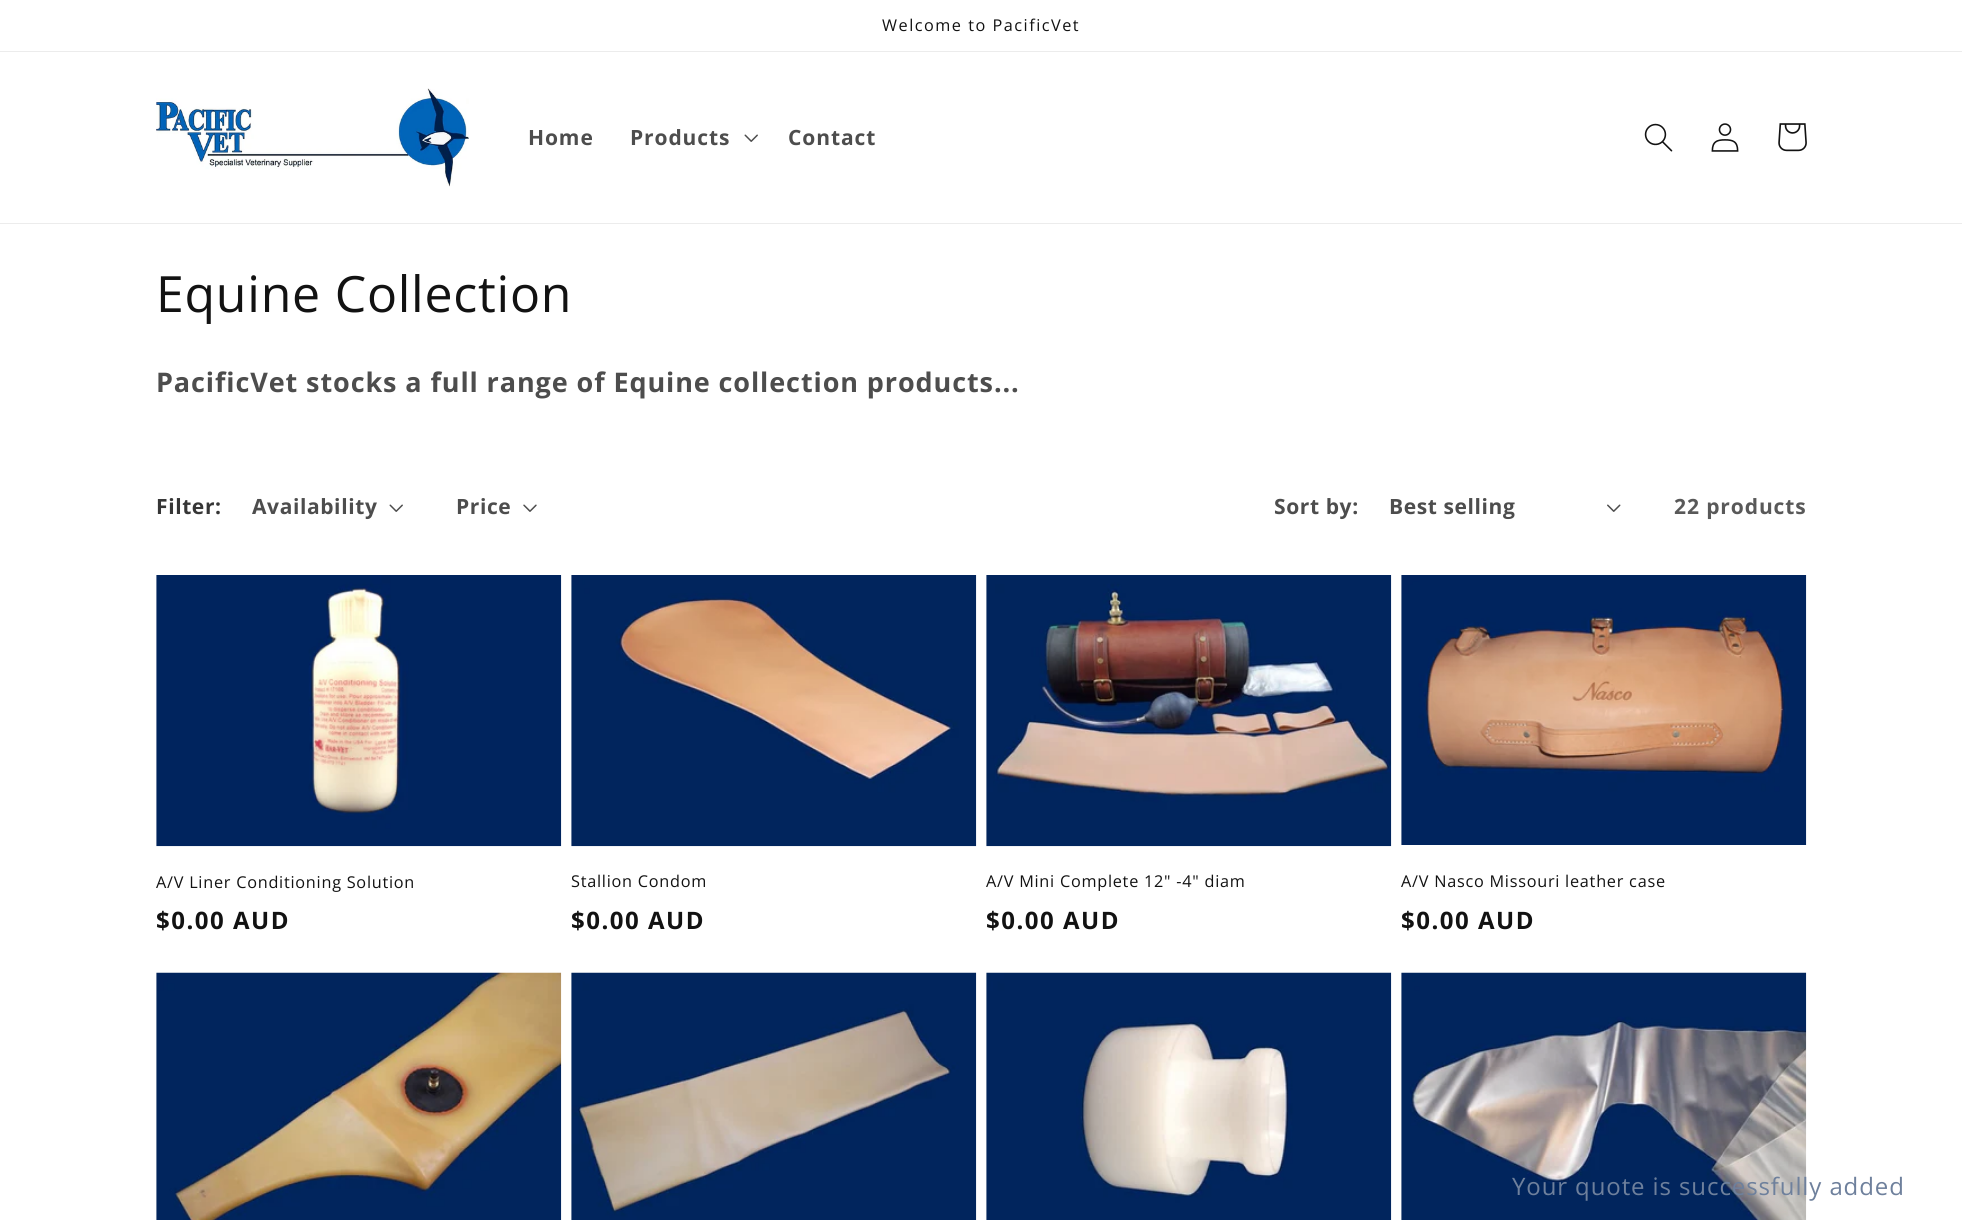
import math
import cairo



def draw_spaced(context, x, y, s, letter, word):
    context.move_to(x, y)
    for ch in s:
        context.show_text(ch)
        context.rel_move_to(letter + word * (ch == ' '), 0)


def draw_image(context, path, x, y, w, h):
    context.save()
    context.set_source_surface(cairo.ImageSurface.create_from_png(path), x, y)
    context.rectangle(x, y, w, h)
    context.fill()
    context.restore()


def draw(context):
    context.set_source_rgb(1, 1, 1)
    context.paint()
    context.set_source_rgb(236 / 255, 236 / 255, 236 / 255)
    context.rectangle(0, 51, 1962, 1)
    context.fill()
    context.rectangle(0, 223, 1962, 1)
    context.fill()
    draw_image(context, "images/1.png", 156, 88, 313, 99)
    draw_image(context, "images/2.png", 744, 134, 14, 8)
    draw_image(context, "images/3.png", 1644, 123, 29, 29)
    draw_image(context, "images/4.png", 1711, 123, 28, 29)
    draw_image(context, "images/5.png", 1778, 123, 29, 29)
    draw_image(context, "images/2.png", 389, 504, 14, 8)
    draw_image(context, "images/6.png", 523, 504, 14, 8)
    draw_image(context, "images/7.png", 1607, 504, 14, 8)
    context.set_source_rgb(243 / 255, 243 / 255, 243 / 255)
    context.rectangle(156, 575, 1, 271)
    context.fill()
    draw_image(context, "images/8.png", 156, 575, 406, 272)
    context.rectangle(571, 575, 1, 271)
    context.fill()
    draw_image(context, "images/9.png", 571, 575, 406, 272)
    context.rectangle(986, 575, 1, 271)
    context.fill()
    draw_image(context, "images/10.png", 986, 575, 406, 272)
    context.rectangle(1401, 575, 1, 270)
    context.fill()
    draw_image(context, "images/11.png", 1401, 575, 406, 270)
    context.rectangle(156, 973, 1, 247)
    context.fill()
    draw_image(context, "images/12.png", 156, 972, 406, 248)
    context.rectangle(571, 973, 1, 247)
    context.fill()
    draw_image(context, "images/13.png", 571, 972, 406, 248)
    context.rectangle(986, 973, 1, 247)
    context.fill()
    draw_image(context, "images/14.png", 986, 972, 406, 248)
    context.rectangle(1401, 973, 1, 247)
    context.fill()
    draw_image(context, "images/15.png", 1401, 972, 406, 248)
    context.select_font_face("Open Sans")
    context.set_font_size(16.25)
    context.set_source_rgb(18 / 255, 18 / 255, 18 / 255)
    draw_spaced(context, 882, 31, "Welcome to PacificVet", 1.5, 0)
    context.select_font_face("Open Sans", cairo.FontSlant.NORMAL, cairo.FontWeight.BOLD)
    context.set_font_size(21)
    context.set_source_rgb(77 / 255, 77 / 255, 77 / 255)
    draw_spaced(context, 528, 145, "Home", 0.9, 0)
    draw_spaced(context, 630, 145, "Products", 0.9, 0)
    draw_spaced(context, 788, 145, "Contact", 0.9, 0)
    context.select_font_face("Open Sans")
    context.set_font_size(50)
    context.set_source_rgb(18 / 255, 18 / 255, 18 / 255)
    draw_spaced(context, 156, 312, "Equine Collection", 0.75, 0)
    context.select_font_face("Open Sans", cairo.FontSlant.NORMAL, cairo.FontWeight.BOLD)
    context.set_font_size(27)
    context.set_source_rgb(77 / 255, 77 / 255, 77 / 255)
    draw_spaced(context, 156, 392, "PacificVet stocks a full range of Equine collection products...", 0.9, 0)
    context.set_font_size(21)
    context.set_source_rgb(54 / 255, 54 / 255, 54 / 255)
    draw_spaced(context, 156, 514, "Filter:", 0.6, 0)
    context.set_source_rgb(77 / 255, 77 / 255, 77 / 255)
    draw_spaced(context, 252, 514, "Availability", 0.6, 0)
    draw_spaced(context, 456, 514, "Price", 0.6, 0)
    draw_spaced(context, 1274, 514, "Sort by:", 0.6, 0)
    draw_spaced(context, 1389, 514, "Best selling", 0.6, 0)
    context.set_source_rgb(89 / 255, 89 / 255, 89 / 255)
    draw_spaced(context, 1674, 514, "22 products", 0.9, 0)
    context.select_font_face("Open Sans")
    context.set_font_size(16.25)
    context.set_source_rgb(18 / 255, 18 / 255, 18 / 255)
    draw_spaced(context, 156, 888, "A/V Liner Conditioning Solution", 0.75, 0)
    context.select_font_face("Open Sans", cairo.FontSlant.NORMAL, cairo.FontWeight.BOLD)
    context.set_font_size(24)
    draw_spaced(context, 156, 929, "$0.00 AUD", 1.5, 0)
    context.select_font_face("Open Sans")
    context.set_font_size(16.25)
    draw_spaced(context, 571, 887, "Stallion Condom", 0.75, 0)
    context.select_font_face("Open Sans", cairo.FontSlant.NORMAL, cairo.FontWeight.BOLD)
    context.set_font_size(24)
    draw_spaced(context, 571, 929, "$0.00 AUD", 1.5, 0)
    context.select_font_face("Open Sans")
    context.set_font_size(16.25)
    draw_spaced(context, 986, 887, "A/V Mini Complete 12\" -4\" diam", 0.75, 0)
    context.select_font_face("Open Sans", cairo.FontSlant.NORMAL, cairo.FontWeight.BOLD)
    context.set_font_size(24)
    draw_spaced(context, 986, 929, "$0.00 AUD", 1.5, 0)
    context.select_font_face("Open Sans")
    context.set_font_size(16.25)
    draw_spaced(context, 1401, 887, "A/V Nasco Missouri leather case", 0.75, 0)
    context.select_font_face("Open Sans", cairo.FontSlant.NORMAL, cairo.FontWeight.BOLD)
    context.set_font_size(24)
    draw_spaced(context, 1401, 929, "$0.00 AUD", 1.5, 0)
    context.select_font_face("Open Sans")
    context.set_source_rgb(110 / 255, 128 / 255, 156 / 255)
    draw_spaced(context, 1512, 1195, "Your quote is successfully added", 0.9, 0)


surface = cairo.ImageSurface(cairo.Format.RGB24, 1962, 1220)
context = cairo.Context(surface)
options = cairo.FontOptions()
options.set_hint_metrics(cairo.HintMetrics.OFF)
options.set_hint_style(cairo.HintStyle.NONE)
context.set_font_options(options)
context.set_miter_limit(4)
draw(context)
surface.write_to_png("out.png")
